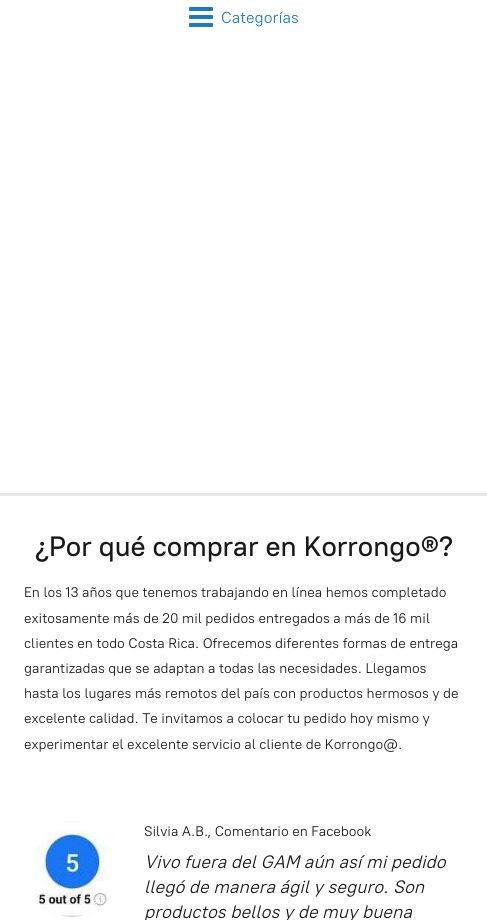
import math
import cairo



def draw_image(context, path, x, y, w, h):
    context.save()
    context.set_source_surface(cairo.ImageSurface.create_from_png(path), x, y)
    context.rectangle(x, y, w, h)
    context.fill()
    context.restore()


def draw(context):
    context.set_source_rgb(1, 1, 1)
    context.paint()
    draw_image(context, "images/1.png", 189, 7, 24, 20)
    context.set_source_rgb(230 / 255, 230 / 255, 230 / 255)
    context.rectangle(0, 493, 487, 3)
    context.fill()
    draw_image(context, "images/2.png", 35, 821, 73, 96)
    context.select_font_face("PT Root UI")
    context.set_font_size(16)
    context.set_source_rgb(26 / 255, 122 / 255, 196 / 255)
    context.move_to(221, 23)
    context.show_text("Categorías")
    context.select_font_face("PT Root UI Medium")
    context.set_font_size(28)
    context.set_source_rgb(25 / 255, 25 / 255, 25 / 255)
    context.move_to(35, 556)
    context.show_text("¿Por qué comprar en Korrongo®?")
    context.select_font_face("PT Root UI")
    context.set_font_size(14)
    context.move_to(24, 597)
    context.show_text("En los 13 años que tenemos trabajando en línea hemos completado")
    context.move_to(24, 623)
    context.show_text("exitosamente más de 20 mil pedidos entregados a más de 16 mil")
    context.move_to(24, 648)
    context.show_text("clientes en todo Costa Rica. Ofrecemos diferentes formas de entrega")
    context.move_to(24, 673)
    context.show_text("garantizadas que se adaptan a todas las necesidades. Llegamos")
    context.move_to(24, 698)
    context.show_text("hasta los lugares más remotos del país con productos hermosos y de")
    context.move_to(24, 723)
    context.show_text("excelente calidad. Te invitamos a colocar tu pedido hoy mismo y")
    context.move_to(24, 749)
    context.show_text("experimentar el excelente servicio al cliente de Korrongo@.")
    context.move_to(144, 836)
    context.show_text("Silvia A.B.")
    context.move_to(207, 836)
    context.show_text(", Comentario en Facebook")
    context.select_font_face("PT Root UI", cairo.FontSlant.ITALIC)
    context.set_font_size(18)
    context.move_to(144, 868)
    context.show_text("Vivo fuera del GAM aún así mi pedido")
    context.move_to(144, 893)
    context.show_text("llegó de manera ágil y seguro. Son")
    context.move_to(144, 918)
    context.show_text("productos bellos y de muy buena")


surface = cairo.ImageSurface(cairo.Format.RGB24, 487, 920)
context = cairo.Context(surface)
options = cairo.FontOptions()
options.set_hint_metrics(cairo.HintMetrics.OFF)
options.set_hint_style(cairo.HintStyle.NONE)
context.set_font_options(options)
context.set_miter_limit(4)
draw(context)
surface.write_to_png("out.png")
